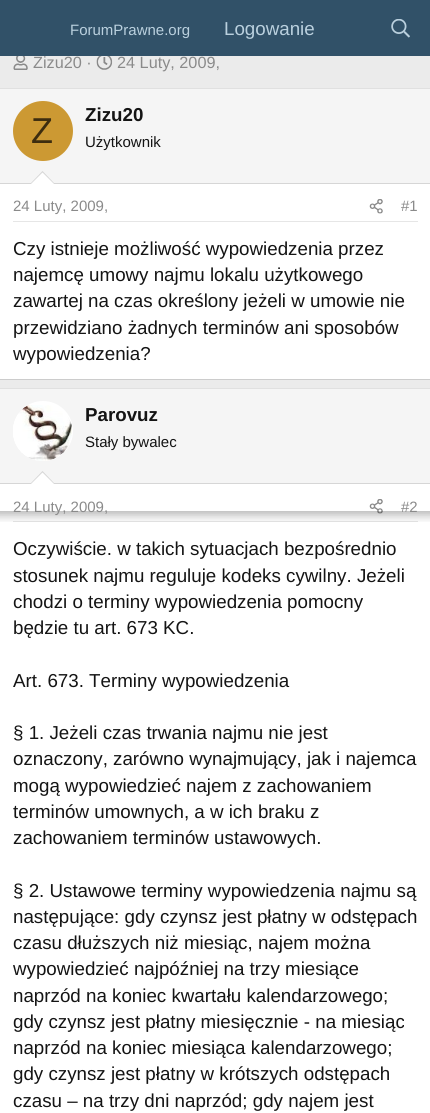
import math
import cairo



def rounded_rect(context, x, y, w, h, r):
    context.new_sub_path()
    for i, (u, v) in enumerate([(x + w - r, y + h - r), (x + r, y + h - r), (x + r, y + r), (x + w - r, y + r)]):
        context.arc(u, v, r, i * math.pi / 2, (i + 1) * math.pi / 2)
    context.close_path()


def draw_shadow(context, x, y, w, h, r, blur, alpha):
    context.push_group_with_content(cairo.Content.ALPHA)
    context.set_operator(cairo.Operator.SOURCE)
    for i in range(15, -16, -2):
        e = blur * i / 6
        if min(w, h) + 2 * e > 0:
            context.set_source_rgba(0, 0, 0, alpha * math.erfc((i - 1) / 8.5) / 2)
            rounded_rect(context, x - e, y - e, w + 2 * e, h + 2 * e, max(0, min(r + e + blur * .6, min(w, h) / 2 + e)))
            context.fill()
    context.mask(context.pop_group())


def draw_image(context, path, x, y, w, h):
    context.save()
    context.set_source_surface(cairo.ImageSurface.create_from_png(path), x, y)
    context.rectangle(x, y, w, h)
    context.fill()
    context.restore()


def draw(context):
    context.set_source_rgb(235 / 255, 235 / 255, 235 / 255)
    context.paint()
    draw_image(context, "images/2.png", 13, 56, 15, 14)
    draw_image(context, "images/3.png", 96, 56, 17, 14)
    context.set_source_rgb(1, 1, 1)
    context.rectangle(0, 184, 430, 195)
    context.fill()
    context.set_source_rgb(224 / 255, 224 / 255, 224 / 255)
    context.rectangle(0, 88, 430, 1)
    context.fill()
    context.set_source_rgb(204 / 255, 204 / 255, 204 / 255)
    context.rectangle(0, 379, 430, 1)
    context.fill()
    context.set_source_rgb(245 / 255, 245 / 255, 245 / 255)
    context.rectangle(0, 89, 430, 94)
    context.fill()
    context.set_source_rgb(214 / 255, 214 / 255, 214 / 255)
    context.rectangle(0, 183, 430, 1)
    context.fill()
    context.set_source_rgb(204 / 255, 153 / 255, 51 / 255)
    context.arc(43, 131, 30, 0, 2 * math.pi)
    context.fill()
    context.set_source_rgb(214 / 255, 214 / 255, 214 / 255)
    context.new_path()
    context.move_to(55, 184)
    context.line_to(30, 184)
    context.line_to(42.5, 171)
    context.close_path()
    context.fill()
    context.set_source_rgb(1, 1, 1)
    context.new_path()
    context.move_to(54, 184)
    context.line_to(31, 184)
    context.line_to(42.5, 172.5)
    context.close_path()
    context.fill()
    context.set_source_rgb(230 / 255, 230 / 255, 230 / 255)
    context.rectangle(13, 221, 405, 1)
    context.fill()
    draw_image(context, "images/4.png", 369, 199, 14, 15)
    context.set_source_rgb(1, 1, 1)
    context.rectangle(0, 484, 430, 629)
    context.fill()
    context.set_source_rgb(224 / 255, 224 / 255, 224 / 255)
    context.rectangle(0, 388, 430, 1)
    context.fill()
    context.set_source_rgb(245 / 255, 245 / 255, 245 / 255)
    context.rectangle(0, 389, 430, 94)
    context.fill()
    context.set_source_rgb(214 / 255, 214 / 255, 214 / 255)
    context.rectangle(0, 483, 430, 1)
    context.fill()
    context.set_source_rgb(1, 1, 1)
    context.arc(43, 431, 30, 0, 2 * math.pi)
    context.fill()
    draw_image(context, "images/5.png", 13, 405, 59, 56)
    context.set_source_rgb(214 / 255, 214 / 255, 214 / 255)
    context.new_path()
    context.move_to(55, 484)
    context.line_to(30, 484)
    context.line_to(42.5, 471)
    context.close_path()
    context.fill()
    context.set_source_rgb(1, 1, 1)
    context.new_path()
    context.move_to(54, 484)
    context.line_to(31, 484)
    context.line_to(42.5, 472.5)
    context.close_path()
    context.fill()
    context.set_source_rgb(230 / 255, 230 / 255, 230 / 255)
    context.rectangle(13, 521, 405, 1)
    context.fill()
    draw_image(context, "images/4.png", 369, 499, 14, 15)
    context.save()
    context.rectangle(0, 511, 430, 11)
    context.clip()
    context.set_source_rgb(0, 0, 0)
    draw_shadow(context, -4, -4, 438, 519, 0, 5, 0.3)
    context.restore()
    context.set_source_rgb(49 / 255, 81 / 255, 104 / 255)
    context.rectangle(0, 0, 430, 56)
    context.fill()
    draw_image(context, "images/1.png", 391, 19, 19, 19)
    context.select_font_face("Liberation Sans")
    context.set_font_size(15)
    context.set_source_rgb(186 / 255, 208 / 255, 222 / 255)
    context.move_to(70, 35)
    context.show_text("ForumPrawne.org")
    context.set_font_size(18.75)
    context.move_to(224, 35)
    context.show_text("Logowanie")
    context.set_font_size(16.25)
    context.set_source_rgb(138 / 255, 138 / 255, 138 / 255)
    context.move_to(33, 68)
    context.show_text("Zizu20 ·")
    context.move_to(117, 68)
    context.show_text("24 Luty, 2009,")
    context.set_font_size(36)
    context.set_source_rgb(61 / 255, 45 / 255, 15 / 255)
    context.move_to(31, 143)
    context.show_text("Z")
    context.select_font_face("Liberation Sans", cairo.FontSlant.NORMAL, cairo.FontWeight.BOLD)
    context.set_font_size(18.75)
    context.set_source_rgb(20 / 255, 20 / 255, 20 / 255)
    context.move_to(85, 121)
    context.show_text("Zizu20")
    context.select_font_face("Liberation Sans")
    context.set_font_size(15)
    context.move_to(85, 147)
    context.show_text("Użytkownik")
    context.set_source_rgb(138 / 255, 138 / 255, 138 / 255)
    context.move_to(13, 211)
    context.show_text("24 Luty, 2009,")
    context.move_to(401, 211)
    context.show_text("#1")
    context.set_font_size(18.75)
    context.set_source_rgb(20 / 255, 20 / 255, 20 / 255)
    context.move_to(13, 255)
    context.show_text("Czy istnieje możliwość wypowiedzenia przez")
    context.move_to(13, 281)
    context.show_text("najemcę umowy najmu lokalu użytkowego")
    context.move_to(13, 307)
    context.show_text("zawartej na czas określony jeżeli w umowie nie")
    context.move_to(13, 334)
    context.show_text("przewidziano żadnych terminów ani sposobów")
    context.move_to(13, 360)
    context.show_text("wypowiedzenia?")
    context.select_font_face("Liberation Sans", cairo.FontSlant.NORMAL, cairo.FontWeight.BOLD)
    context.move_to(85, 421)
    context.show_text("Parovuz")
    context.select_font_face("Liberation Sans")
    context.set_font_size(15)
    context.move_to(85, 447)
    context.show_text("Stały bywalec")
    context.set_source_rgb(138 / 255, 138 / 255, 138 / 255)
    context.move_to(13, 512)
    context.show_text("24 Luty, 2009,")
    context.move_to(401, 512)
    context.show_text("#2")
    context.set_font_size(18.75)
    context.set_source_rgb(20 / 255, 20 / 255, 20 / 255)
    context.move_to(13, 555)
    context.show_text("Oczywiście. w takich sytuacjach bezpośrednio")
    context.move_to(13, 582)
    context.show_text("stosunek najmu reguluje kodeks cywilny. Jeżeli")
    context.move_to(13, 608)
    context.show_text("chodzi o terminy wypowiedzenia pomocny")
    context.move_to(13, 634)
    context.show_text("będzie tu art. 673 KC.")
    context.move_to(13, 687)
    context.show_text("Art. 673. Terminy wypowiedzenia")
    context.move_to(13, 739)
    context.show_text("§ 1. Jeżeli czas trwania najmu nie jest")
    context.move_to(13, 765)
    context.show_text("oznaczony, zarówno wynajmujący, jak i najemca")
    context.move_to(13, 792)
    context.show_text("mogą wypowiedzieć najem z zachowaniem")
    context.move_to(13, 818)
    context.show_text("terminów umownych, a w ich braku z")
    context.move_to(13, 844)
    context.show_text("zachowaniem terminów ustawowych.")
    context.move_to(13, 897)
    context.show_text("§ 2. Ustawowe terminy wypowiedzenia najmu są")
    context.move_to(13, 923)
    context.show_text("następujące: gdy czynsz jest płatny w odstępach")
    context.move_to(13, 949)
    context.show_text("czasu dłuższych niż miesiąc, najem można")
    context.move_to(13, 975)
    context.show_text("wypowiedzieć najpóźniej na trzy miesiące")
    context.move_to(13, 1002)
    context.show_text("naprzód na koniec kwartału kalendarzowego;")
    context.move_to(13, 1028)
    context.show_text("gdy czynsz jest płatny miesięcznie - na miesiąc")
    context.move_to(13, 1054)
    context.show_text("naprzód na koniec miesiąca kalendarzowego;")
    context.move_to(13, 1080)
    context.show_text("gdy czynsz jest płatny w krótszych odstępach")
    context.move_to(13, 1107)
    context.show_text("czasu – na trzy dni naprzód; gdy najem jest")


surface = cairo.ImageSurface(cairo.Format.RGB24, 430, 1113)
context = cairo.Context(surface)
options = cairo.FontOptions()
options.set_hint_metrics(cairo.HintMetrics.OFF)
options.set_hint_style(cairo.HintStyle.NONE)
context.set_font_options(options)
context.set_miter_limit(4)
draw(context)
surface.write_to_png("out.png")
